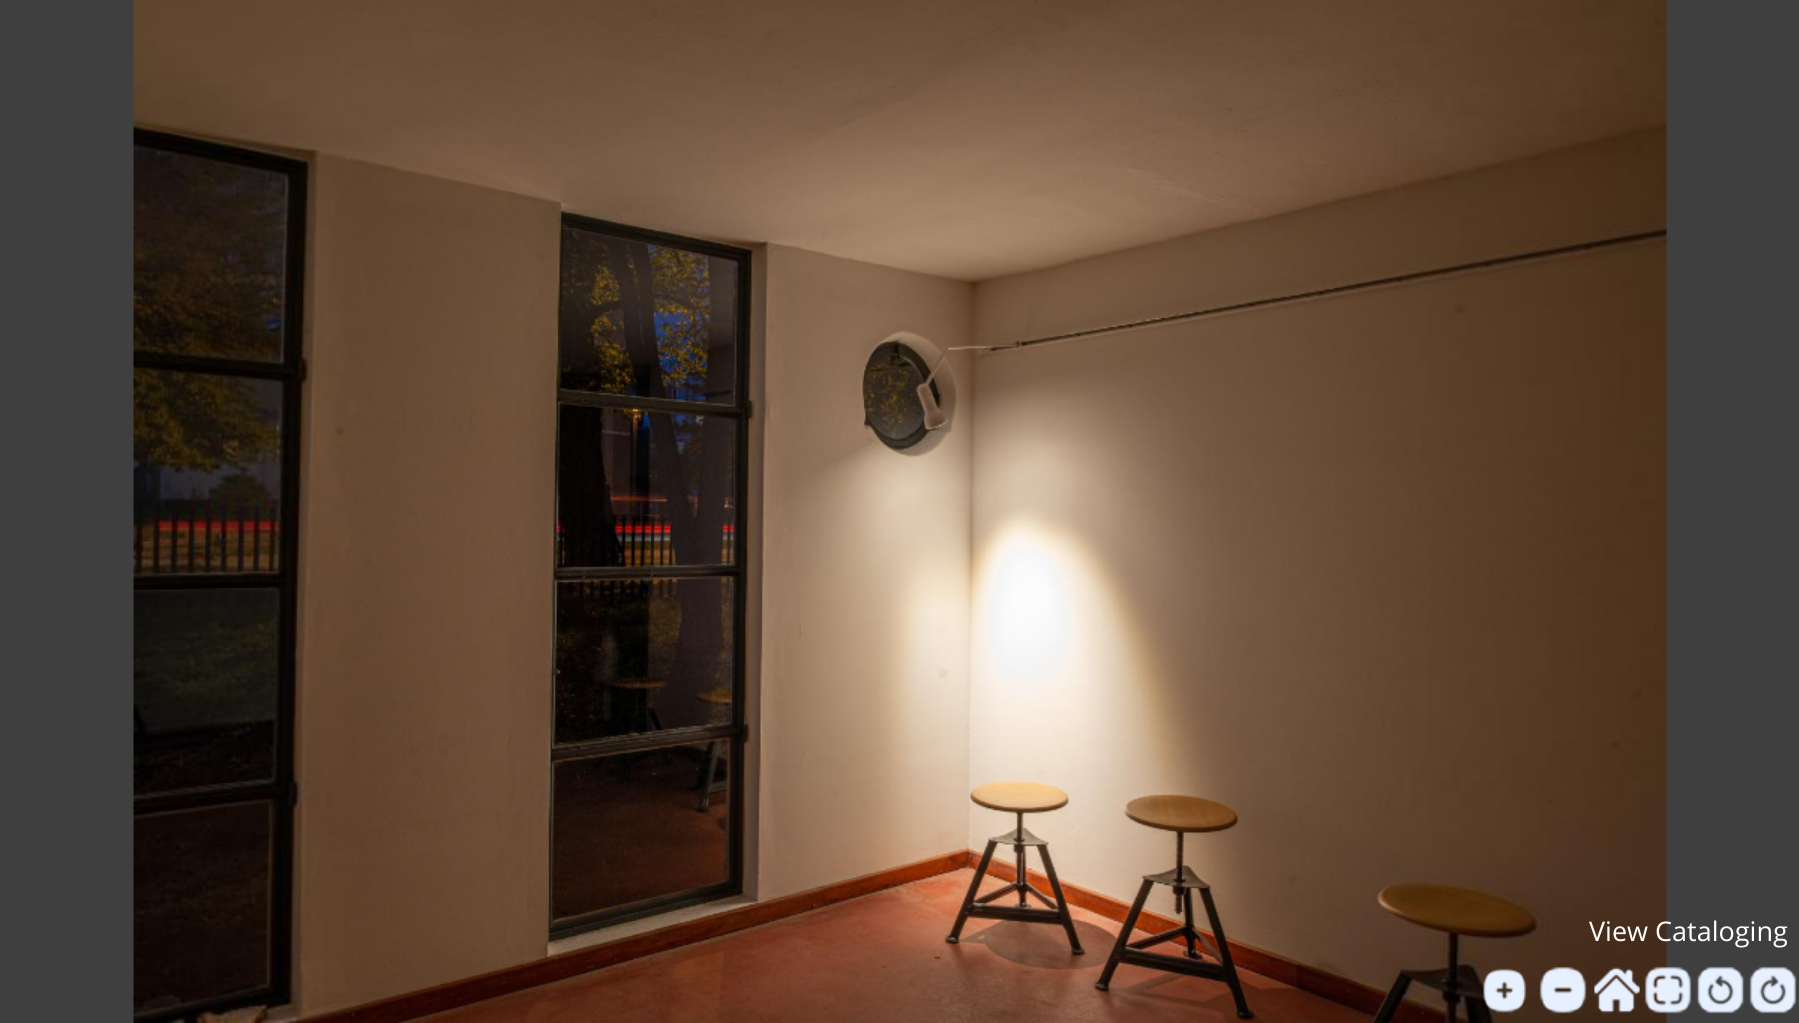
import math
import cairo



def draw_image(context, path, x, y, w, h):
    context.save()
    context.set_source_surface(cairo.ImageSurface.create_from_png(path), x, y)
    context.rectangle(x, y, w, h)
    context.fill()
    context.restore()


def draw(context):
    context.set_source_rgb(63 / 255, 63 / 255, 63 / 255)
    context.paint()
    draw_image(context, "images/1.png", 133, 0, 1534, 1023)
    draw_image(context, "images/2.png", 1483, 968, 43, 45)
    draw_image(context, "images/3.png", 1483, 969, 43, 44)
    draw_image(context, "images/4.png", 1539, 966, 48, 48)
    draw_image(context, "images/5.png", 1540, 967, 46, 46)
    draw_image(context, "images/6.png", 1594, 967, 46, 46)
    draw_image(context, "images/7.png", 1594, 967, 46, 46)
    draw_image(context, "images/8.png", 1644, 966, 48, 48)
    draw_image(context, "images/9.png", 1645, 967, 46, 46)
    draw_image(context, "images/10.png", 1696, 966, 49, 48)
    draw_image(context, "images/11.png", 1697, 967, 47, 46)
    draw_image(context, "images/12.png", 1749, 966, 48, 48)
    draw_image(context, "images/13.png", 1750, 967, 46, 46)
    context.select_font_face("Open Sans")
    context.set_font_size(27)
    context.set_source_rgb(1, 1, 1)
    context.move_to(1589, 941)
    context.show_text("View Cataloging")


surface = cairo.ImageSurface(cairo.Format.RGB24, 1799, 1023)
context = cairo.Context(surface)
options = cairo.FontOptions()
options.set_hint_metrics(cairo.HintMetrics.OFF)
options.set_hint_style(cairo.HintStyle.NONE)
context.set_font_options(options)
context.set_miter_limit(4)
draw(context)
surface.write_to_png("out.png")
